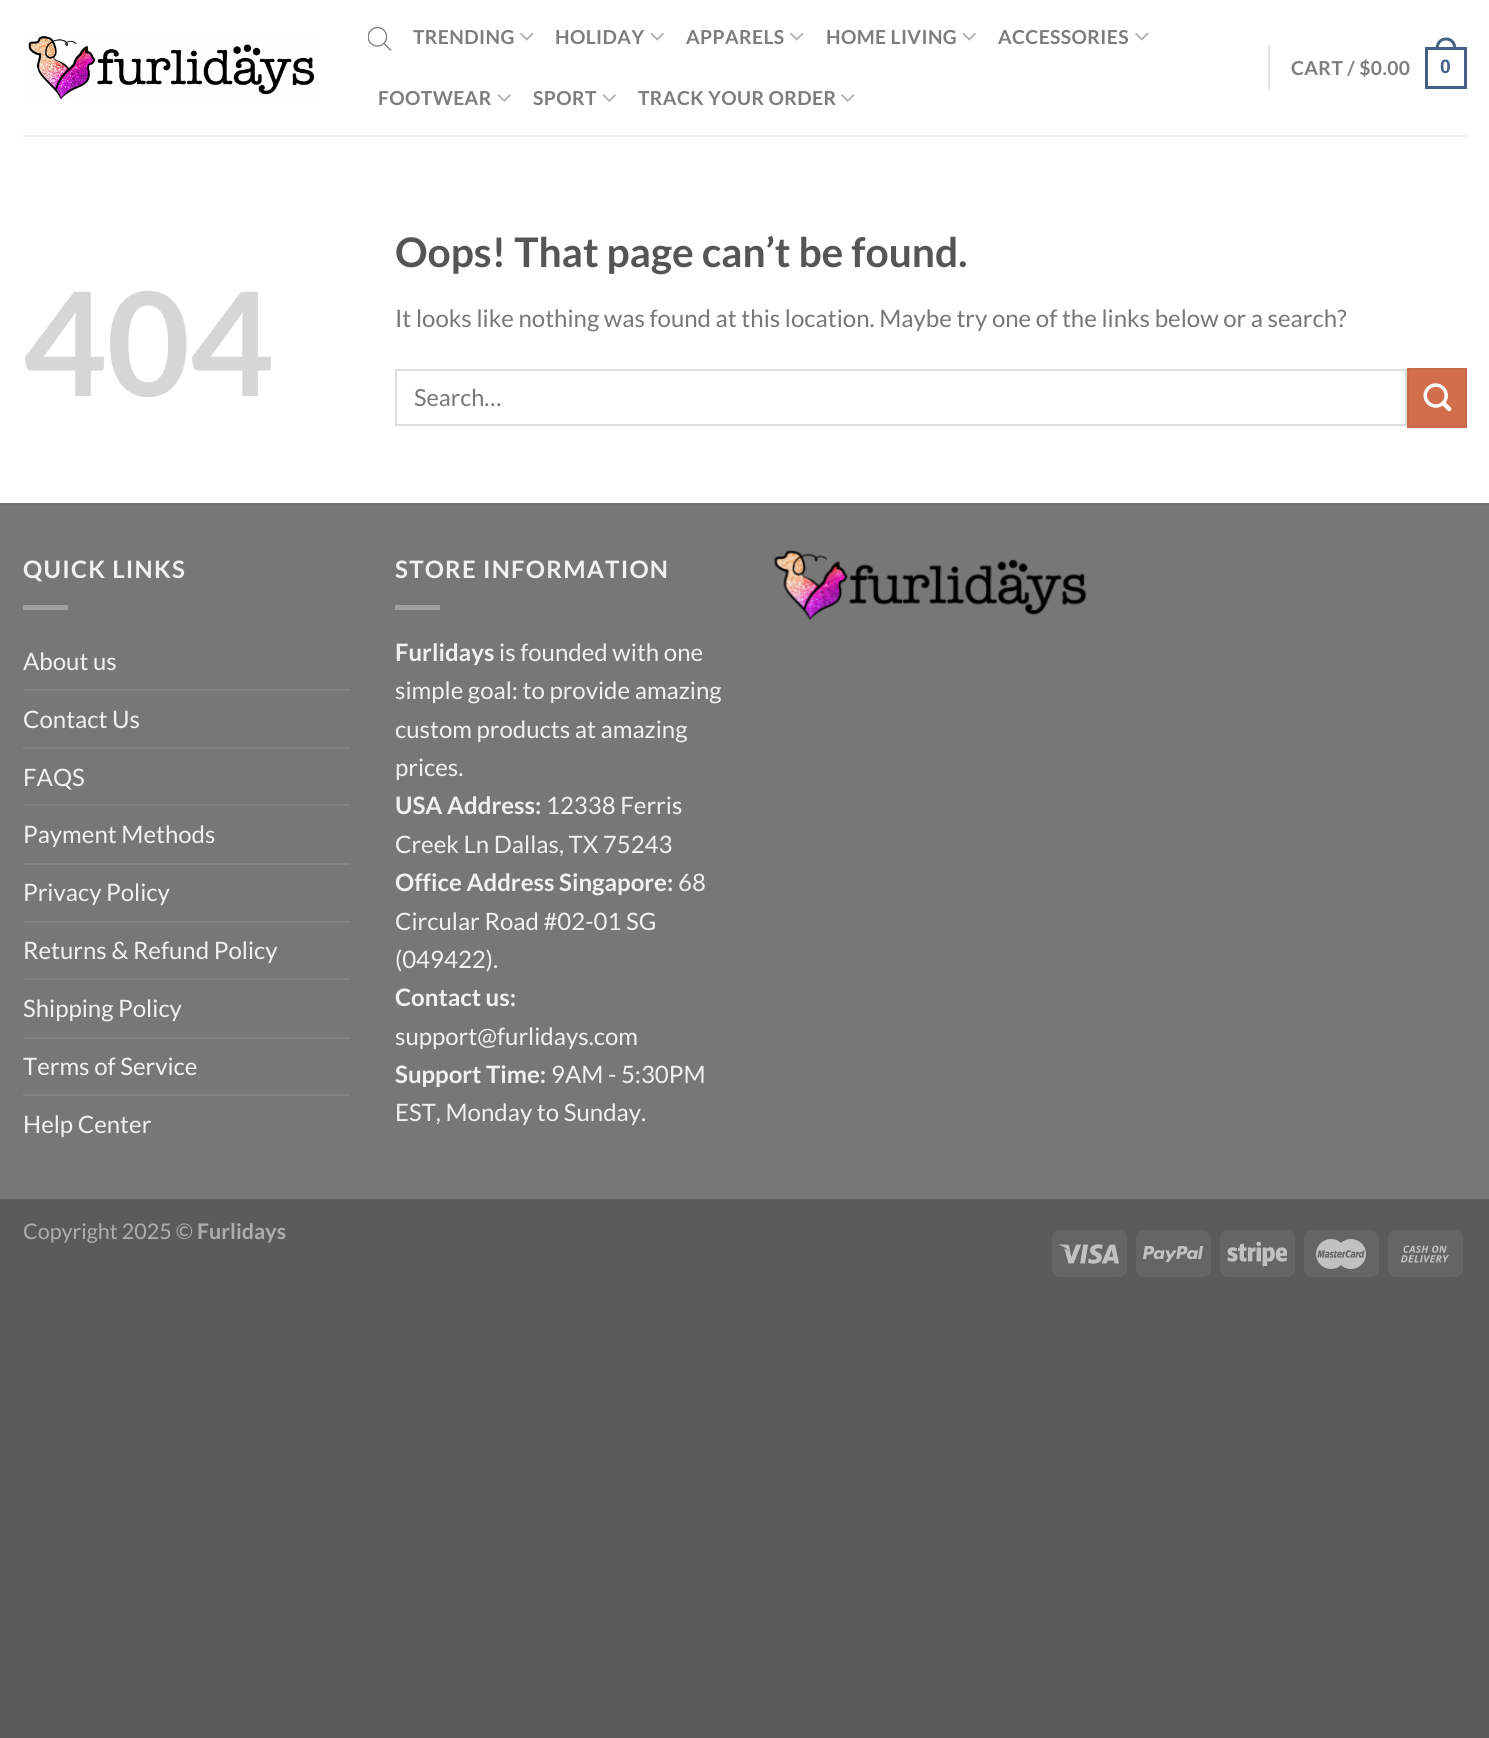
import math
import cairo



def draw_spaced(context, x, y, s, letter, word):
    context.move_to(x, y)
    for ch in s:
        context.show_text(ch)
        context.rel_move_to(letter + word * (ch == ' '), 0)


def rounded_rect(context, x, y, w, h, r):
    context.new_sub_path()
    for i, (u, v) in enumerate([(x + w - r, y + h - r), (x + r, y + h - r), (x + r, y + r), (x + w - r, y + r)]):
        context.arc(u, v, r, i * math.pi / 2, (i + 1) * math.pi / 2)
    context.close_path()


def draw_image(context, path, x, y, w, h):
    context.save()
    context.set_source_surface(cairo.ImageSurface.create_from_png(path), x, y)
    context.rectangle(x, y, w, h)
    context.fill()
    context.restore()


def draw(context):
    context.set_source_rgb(91 / 255, 91 / 255, 91 / 255)
    context.paint()
    context.set_source_rgb(1, 1, 1)
    context.rectangle(0, 0, 1489, 503)
    context.fill()
    draw_image(context, "images/1.png", 28, 35, 287, 65)
    draw_image(context, "images/2.png", 368, 27, 24, 24)
    draw_image(context, "images/3.png", 520, 32, 14, 9)
    draw_image(context, "images/4.png", 650, 32, 14, 9)
    draw_image(context, "images/3.png", 790, 32, 14, 9)
    draw_image(context, "images/4.png", 962, 32, 14, 9)
    draw_image(context, "images/3.png", 1135, 32, 14, 9)
    draw_image(context, "images/5.png", 497, 94, 14, 8)
    draw_image(context, "images/5.png", 602, 94, 14, 8)
    draw_image(context, "images/6.png", 841, 94, 14, 8)
    context.set_source_rgb(230 / 255, 230 / 255, 230 / 255)
    context.rectangle(1268, 45, 2, 45)
    context.fill()
    context.rectangle(1426.5, 48.5, 39, 39)
    context.set_source_rgb(68 / 255, 96 / 255, 132 / 255)
    context.set_line_width(3)
    context.stroke()
    context.set_fill_rule(cairo.FillRule.EVEN_ODD)
    context.new_path()
    context.move_to(1446, 37.5)
    context.curve_to(1453, 37.5, 1456.5, 43, 1456.5, 49.5)
    context.line_to(1435.5, 49.5)
    context.curve_to(1435.5, 43, 1439, 37.5, 1446, 37.5)
    context.close_path()
    context.move_to(1446, 40.5)
    context.curve_to(1451.5, 40.5, 1453.5, 45, 1453.5, 49.5)
    context.line_to(1438.5, 49.5)
    context.curve_to(1438.5, 45, 1440.5, 40.5, 1446, 40.5)
    context.close_path()
    context.fill()
    context.set_source_rgb(241 / 255, 241 / 255, 241 / 255)
    context.rectangle(23, 135, 1444, 2)
    context.fill()
    context.rectangle(396, 370, 1010, 55)
    context.set_source_rgb(221 / 255, 221 / 255, 221 / 255)
    context.set_line_width(2)
    context.stroke()
    context.set_source_rgb(210 / 255, 110 / 255, 75 / 255)
    context.rectangle(1408, 369, 58, 58)
    context.fill_preserve()
    context.set_source_rgb(200 / 255, 105 / 255, 71 / 255)
    context.stroke()
    draw_image(context, "images/7.png", 1423, 383, 29, 29)
    context.set_source_rgb(119 / 255, 119 / 255, 119 / 255)
    context.rectangle(0, 505, 1489, 694)
    context.fill()
    context.set_source_rgb(113 / 255, 113 / 255, 113 / 255)
    context.rectangle(0, 503, 1489, 2)
    context.fill()
    context.set_source_rgb(160 / 255, 160 / 255, 160 / 255)
    context.rectangle(23, 605, 45, 5)
    context.fill()
    context.set_source_rgb(130 / 255, 130 / 255, 130 / 255)
    context.rectangle(23, 689, 327, 2)
    context.fill()
    context.rectangle(23, 747, 327, 2)
    context.fill()
    context.rectangle(23, 804, 327, 2)
    context.fill()
    context.rectangle(23, 863, 327, 2)
    context.fill()
    context.rectangle(23, 921, 327, 2)
    context.fill()
    context.rectangle(23, 978, 327, 2)
    context.fill()
    context.rectangle(23, 1037, 327, 2)
    context.fill()
    context.rectangle(23, 1094, 327, 2)
    context.fill()
    context.set_source_rgb(160 / 255, 160 / 255, 160 / 255)
    context.rectangle(395, 605, 45, 5)
    context.fill()
    draw_image(context, "images/8.png", 774, 550, 313, 70)
    context.set_source_rgb(101 / 255, 101 / 255, 101 / 255)
    rounded_rect(context, 1052, 1230, 75, 47, 8)
    context.fill()
    draw_image(context, "images/9.png", 1059, 1244, 60, 20)
    rounded_rect(context, 1136, 1230, 75, 47, 8)
    context.fill()
    draw_image(context, "images/10.png", 1143, 1246, 60, 16)
    rounded_rect(context, 1220, 1230, 75, 47, 8)
    context.fill()
    draw_image(context, "images/11.png", 1227, 1241, 60, 26)
    rounded_rect(context, 1304, 1230, 75, 47, 8)
    context.fill()
    draw_image(context, "images/12.png", 1316, 1239, 50, 30)
    rounded_rect(context, 1388, 1230, 75, 47, 8)
    context.fill()
    draw_image(context, "images/13.png", 1401, 1245, 48, 18)
    context.select_font_face("Lato", cairo.FontSlant.NORMAL, cairo.FontWeight.BOLD)
    context.set_font_size(19.25)
    context.set_source_rgb(125 / 255, 125 / 255, 125 / 255)
    draw_spaced(context, 413, 44, "TRENDING", 0.4, 0)
    draw_spaced(context, 555, 44, "HOLIDAY", 0.4, 0)
    draw_spaced(context, 686, 44, "APPARELS", 0.4, 0)
    draw_spaced(context, 826, 44, "HOME LIVING", 0.4, 0)
    draw_spaced(context, 998, 44, "ACCESSORIES", 0.4, 0)
    draw_spaced(context, 378, 105, "FOOTWEAR", 0.4, 0)
    draw_spaced(context, 533, 105, "SPORT", 0.4, 0)
    draw_spaced(context, 638, 105, "TRACK YOUR ORDER", 0.4, 0)
    draw_spaced(context, 1291, 75, "CART / $0.00", 0.4, 0)
    context.select_font_face("Liberation Sans", cairo.FontSlant.NORMAL, cairo.FontWeight.BOLD)
    context.set_source_rgb(68 / 255, 96 / 255, 132 / 255)
    draw_spaced(context, 1440, 73, "0", 0.4, 0)
    context.select_font_face("Lato", cairo.FontSlant.NORMAL, cairo.FontWeight.BOLD)
    context.set_font_size(144)
    context.set_source_rgb(214 / 255, 214 / 255, 214 / 255)
    context.move_to(23, 396)
    context.show_text("404")
    context.set_font_size(40.75)
    context.set_source_rgb(85 / 255, 85 / 255, 85 / 255)
    context.move_to(395, 267)
    context.show_text("Oops! That page can’t be found.")
    context.select_font_face("Lato")
    context.set_font_size(24)
    context.set_source_rgb(119 / 255, 119 / 255, 119 / 255)
    context.move_to(395, 327)
    context.show_text("It looks like nothing was found at this location. Maybe try one of the links below or a search?")
    context.set_font_size(23.5)
    context.move_to(414, 406)
    context.show_text("Search…")
    context.select_font_face("Lato", cairo.FontSlant.NORMAL, cairo.FontWeight.BOLD)
    context.set_font_size(24)
    context.set_source_rgb(241 / 255, 241 / 255, 241 / 255)
    draw_spaced(context, 23, 578, "QUICK LINKS", 1.25, 0)
    context.select_font_face("Lato")
    context.move_to(23, 670)
    context.show_text("About us")
    context.move_to(23, 728)
    context.show_text("Contact Us")
    context.move_to(23, 786)
    context.show_text("FAQS")
    context.move_to(23, 843)
    context.show_text("Payment Methods")
    context.move_to(23, 901)
    context.show_text("Privacy Policy")
    context.move_to(23, 959)
    context.show_text("Returns & Refund Policy")
    context.move_to(23, 1017)
    context.show_text("Shipping Policy")
    context.move_to(23, 1075)
    context.show_text("Terms of Service")
    context.move_to(23, 1133)
    context.show_text("Help Center")
    context.select_font_face("Lato", cairo.FontSlant.NORMAL, cairo.FontWeight.BOLD)
    draw_spaced(context, 395, 578, "STORE INFORMATION", 1.25, 0)
    context.move_to(395, 661)
    context.show_text("Furlidays")
    context.select_font_face("Lato")
    context.move_to(499, 661)
    context.show_text("is founded with one")
    context.move_to(395, 699)
    context.show_text("simple goal: to provide amazing")
    context.move_to(395, 738)
    context.show_text("custom products at amazing")
    context.move_to(395, 776)
    context.show_text("prices.")
    context.select_font_face("Lato", cairo.FontSlant.NORMAL, cairo.FontWeight.BOLD)
    context.move_to(395, 814)
    context.show_text("USA Address:")
    context.select_font_face("Lato")
    context.move_to(546, 814)
    context.show_text("12338 Ferris")
    context.move_to(395, 853)
    context.show_text("Creek Ln Dallas, TX 75243")
    context.select_font_face("Lato", cairo.FontSlant.NORMAL, cairo.FontWeight.BOLD)
    context.move_to(395, 891)
    context.show_text("Office Address Singapore:")
    context.select_font_face("Lato")
    context.move_to(678, 891)
    context.show_text("68")
    context.move_to(395, 930)
    context.show_text("Circular Road #02-01 SG")
    context.move_to(395, 968)
    context.show_text("(049422).")
    context.select_font_face("Lato", cairo.FontSlant.NORMAL, cairo.FontWeight.BOLD)
    context.move_to(395, 1006)
    context.show_text("Contact us:")
    context.select_font_face("Lato")
    context.move_to(395, 1045)
    context.show_text("support@furlidays.com")
    context.select_font_face("Lato", cairo.FontSlant.NORMAL, cairo.FontWeight.BOLD)
    context.move_to(395, 1083)
    context.show_text("Support Time:")
    context.select_font_face("Lato")
    context.move_to(551, 1083)
    context.show_text("9AM - 5:30PM")
    context.move_to(395, 1121)
    context.show_text("EST, Monday to Sunday.")
    context.set_font_size(21.5)
    context.set_source_rgb(173 / 255, 173 / 255, 173 / 255)
    context.move_to(23, 1239)
    context.show_text("Copyright 2025 ©")
    context.select_font_face("Lato", cairo.FontSlant.NORMAL, cairo.FontWeight.BOLD)
    context.move_to(197, 1239)
    context.show_text("Furlidays")


surface = cairo.ImageSurface(cairo.Format.RGB24, 1489, 1738)
context = cairo.Context(surface)
options = cairo.FontOptions()
options.set_hint_metrics(cairo.HintMetrics.OFF)
options.set_hint_style(cairo.HintStyle.NONE)
context.set_font_options(options)
context.set_miter_limit(4)
draw(context)
surface.write_to_png("out.png")
